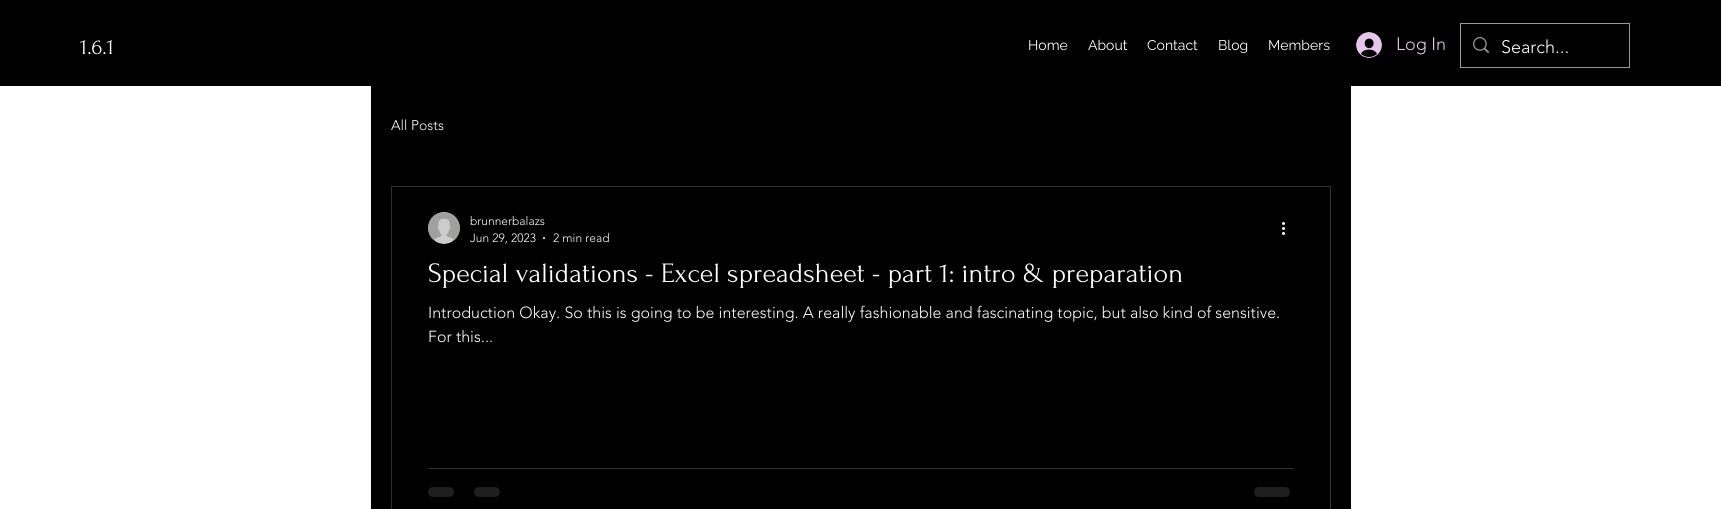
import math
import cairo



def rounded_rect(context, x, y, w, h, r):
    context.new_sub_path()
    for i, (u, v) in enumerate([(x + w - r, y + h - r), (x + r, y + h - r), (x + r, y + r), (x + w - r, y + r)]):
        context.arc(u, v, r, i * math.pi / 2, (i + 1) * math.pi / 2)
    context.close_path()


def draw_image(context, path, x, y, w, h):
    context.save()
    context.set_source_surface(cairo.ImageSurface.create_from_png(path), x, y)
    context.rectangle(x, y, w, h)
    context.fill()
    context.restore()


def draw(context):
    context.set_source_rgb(1, 1, 1)
    context.paint()
    context.set_source_rgb(0, 0, 0)
    context.rectangle(0, 0, 1721, 86)
    context.fill()
    draw_image(context, "images/1.png", 1356, 32, 26, 26)
    context.rectangle(1460.5, 23.5, 169, 44)
    context.set_source_rgb(153 / 255, 153 / 255, 153 / 255)
    context.set_line_width(1)
    context.stroke()
    draw_image(context, "images/2.png", 1473, 37, 16, 17)
    context.set_source_rgb(0, 0, 0)
    context.rectangle(371, 86, 980, 423)
    context.fill()
    context.rectangle(391.5, 186.5, 939, 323)
    context.set_source_rgb(48 / 255, 48 / 255, 48 / 255)
    context.stroke()
    draw_image(context, "images/3.png", 428, 212, 32, 32)
    context.set_source_rgb(1, 1, 1)
    context.arc(544, 238, 1, 0, 2 * math.pi)
    context.fill()
    draw_image(context, "images/4.png", 1282, 222, 3, 13)
    context.set_source_rgb(51 / 255, 51 / 255, 51 / 255)
    context.rectangle(428, 468, 866, 1)
    context.fill()
    context.set_source_rgb(31 / 255, 31 / 255, 31 / 255)
    rounded_rect(context, 428, 487, 26, 10, 5)
    context.fill()
    rounded_rect(context, 474, 487, 26, 10, 5)
    context.fill()
    rounded_rect(context, 1254, 487, 36, 10, 5)
    context.fill()
    context.select_font_face("Forum")
    context.set_font_size(22)
    context.set_source_rgb(1, 1, 1)
    context.move_to(80, 54)
    context.show_text("1.6.1")
    context.select_font_face("Raleway")
    context.set_font_size(14)
    context.move_to(1028, 50)
    context.show_text("Home")
    context.move_to(1088, 50)
    context.show_text("About")
    context.move_to(1147, 50)
    context.show_text("Contact")
    context.move_to(1218, 50)
    context.show_text("Blog")
    context.move_to(1268, 50)
    context.show_text("Members")
    context.select_font_face("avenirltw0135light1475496 Light")
    context.set_font_size(18)
    context.set_source_rgb(230 / 255, 199 / 255, 235 / 255)
    context.move_to(1396, 50)
    context.show_text("Log In")
    context.set_source_rgb(1, 1, 1)
    context.move_to(1501, 53)
    context.show_text("Search...")
    context.set_font_size(14)
    context.move_to(391, 130)
    context.show_text("All Posts")
    context.set_font_size(12)
    context.move_to(470, 225)
    context.show_text("brunnerbalazs")
    context.move_to(470, 242)
    context.show_text("Jun 29, 2023")
    context.move_to(553, 242)
    context.show_text("2 min read")
    context.select_font_face("Forum")
    context.set_font_size(28)
    context.move_to(428, 282)
    context.show_text("Special validations - Excel spreadsheet - part 1: intro & preparation")
    context.select_font_face("avenirltw0135light1475496 Light")
    context.set_font_size(16)
    context.move_to(428, 318)
    context.show_text("Introduction Okay. So this is going to be interesting. A really fashionable and fascinating topic, but also kind of sensitive.")
    context.move_to(428, 342)
    context.show_text("For this...")


surface = cairo.ImageSurface(cairo.Format.RGB24, 1721, 509)
context = cairo.Context(surface)
options = cairo.FontOptions()
options.set_hint_metrics(cairo.HintMetrics.OFF)
options.set_hint_style(cairo.HintStyle.NONE)
context.set_font_options(options)
context.set_miter_limit(4)
draw(context)
surface.write_to_png("out.png")
